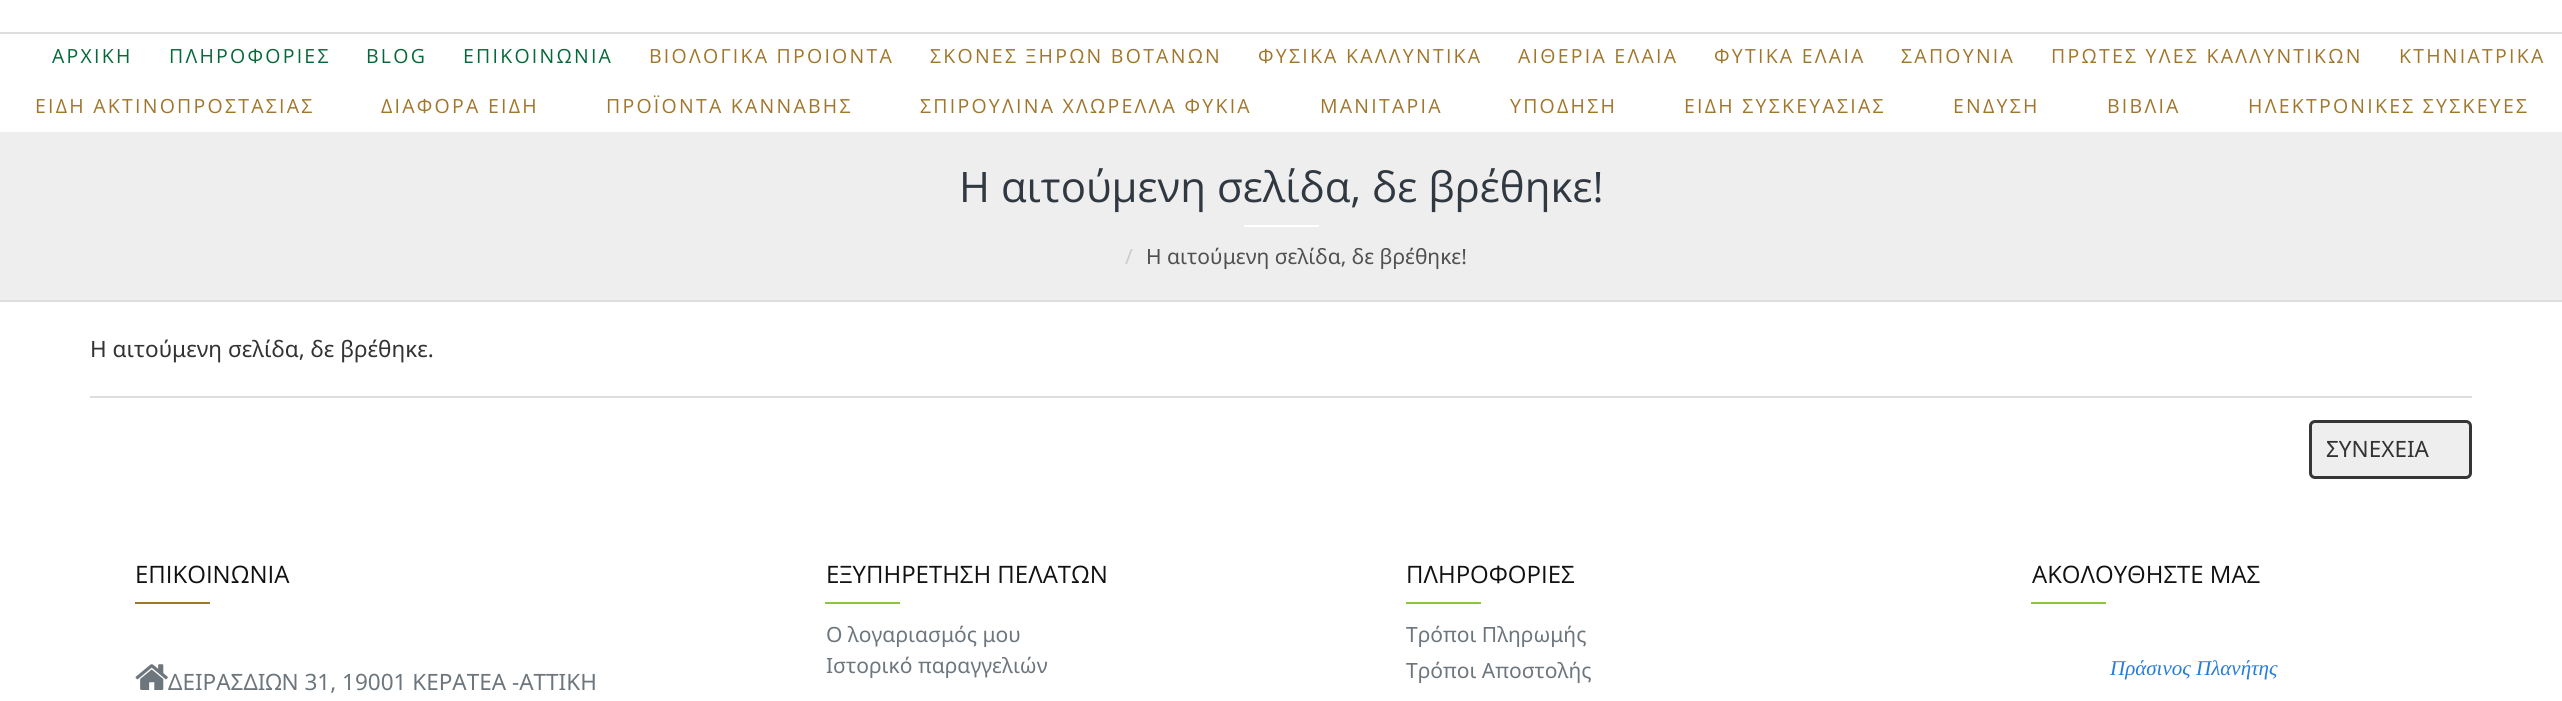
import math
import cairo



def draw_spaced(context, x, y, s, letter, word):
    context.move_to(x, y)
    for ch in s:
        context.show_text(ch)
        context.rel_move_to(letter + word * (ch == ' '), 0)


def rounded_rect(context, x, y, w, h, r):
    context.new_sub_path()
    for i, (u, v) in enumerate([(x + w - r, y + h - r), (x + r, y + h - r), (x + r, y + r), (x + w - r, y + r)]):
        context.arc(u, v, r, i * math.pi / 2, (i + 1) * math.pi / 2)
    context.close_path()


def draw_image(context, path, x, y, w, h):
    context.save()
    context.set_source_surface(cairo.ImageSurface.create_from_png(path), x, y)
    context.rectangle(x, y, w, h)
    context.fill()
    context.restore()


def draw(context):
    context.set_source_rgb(1, 1, 1)
    context.paint()
    context.set_source_rgb(221 / 255, 221 / 255, 221 / 255)
    context.rectangle(0, 32, 2562, 2)
    context.fill()
    context.set_source_rgb(238 / 255, 238 / 255, 238 / 255)
    context.rectangle(0, 132, 2562, 168)
    context.fill()
    context.set_source_rgb(1, 1, 1)
    context.rectangle(1244, 225, 75, 2)
    context.fill()
    context.set_source_rgb(221 / 255, 221 / 255, 221 / 255)
    context.rectangle(0, 300, 2562, 2)
    context.fill()
    context.rectangle(90, 396, 2382, 2)
    context.fill()
    context.set_source_rgb(238 / 255, 238 / 255, 238 / 255)
    rounded_rect(context, 2310.5, 421.5, 160, 56, 4.5)
    context.fill_preserve()
    context.set_source_rgb(54 / 255, 52 / 255, 52 / 255)
    context.set_line_width(3)
    context.stroke()
    context.set_source_rgb(160 / 255, 118 / 255, 43 / 255)
    context.rectangle(135, 602, 75, 2)
    context.fill()
    draw_image(context, "images/1.png", 135, 664, 33, 26)
    context.set_source_rgb(140 / 255, 198 / 255, 63 / 255)
    context.rectangle(825, 602, 75, 2)
    context.fill()
    context.rectangle(1406, 602, 75, 2)
    context.fill()
    context.rectangle(2031, 602, 75, 2)
    context.fill()
    context.select_font_face("Open Sans")
    context.set_font_size(19.5)
    context.set_source_rgb(5 / 255, 104 / 255, 57 / 255)
    draw_spaced(context, 52, 63, "ΑΡΧΙΚΗ", 2.25, 0)
    draw_spaced(context, 169, 63, "ΠΛΗΡΟΦΟΡΙΕΣ", 2.25, 0)
    draw_spaced(context, 366, 63, "BLOG", 2.25, 0)
    draw_spaced(context, 463, 63, "ΕΠΙΚΟΙΝΩΝΙΑ", 2.25, 0)
    context.set_source_rgb(160 / 255, 118 / 255, 43 / 255)
    draw_spaced(context, 649, 63, "ΒΙΟΛΟΓΙΚΑ ΠΡΟΙΟΝΤΑ", 2.25, 0)
    draw_spaced(context, 930, 63, "ΣΚΟΝΕΣ ΞΗΡΩΝ ΒΟΤΑΝΩΝ", 2.25, 0)
    draw_spaced(context, 1258, 63, "ΦΥΣΙΚΑ ΚΑΛΛΥΝΤΙΚΑ", 2.25, 0)
    draw_spaced(context, 1518, 63, "ΑΙΘΕΡΙΑ ΕΛΑΙΑ", 2.25, 0)
    draw_spaced(context, 1714, 63, "ΦΥΤΙΚΑ ΕΛΑΙΑ", 2.25, 0)
    draw_spaced(context, 1901, 63, "ΣΑΠΟΥΝΙΑ", 2.25, 0)
    draw_spaced(context, 2051, 63, "ΠΡΩΤΕΣ ΥΛΕΣ ΚΑΛΛΥΝΤΙΚΩΝ", 2.25, 0)
    draw_spaced(context, 2399, 63, "ΚΤΗΝΙΑΤΡΙΚΑ", 2.25, 0)
    draw_spaced(context, 35, 113, "ΕΙΔΗ ΑΚΤΙΝΟΠΡΟΣΤΑΣΙΑΣ", 2.25, 0)
    draw_spaced(context, 381, 113, "ΔΙΑΦΟΡΑ ΕΙΔΗ", 2.25, 0)
    draw_spaced(context, 606, 113, "ΠΡΟΪΟΝΤΑ ΚΑΝΝΑΒΗΣ", 2.25, 0)
    draw_spaced(context, 920, 113, "ΣΠΙΡΟΥΛΙΝΑ ΧΛΩΡΕΛΛΑ ΦΥΚΙΑ", 2.25, 0)
    draw_spaced(context, 1320, 113, "ΜΑΝΙΤΑΡΙΑ", 2.25, 0)
    draw_spaced(context, 1510, 113, "ΥΠΟΔΗΣΗ", 2.25, 0)
    draw_spaced(context, 1684, 113, "ΕΙΔΗ ΣΥΣΚΕΥΑΣΙΑΣ", 2.25, 0)
    draw_spaced(context, 1953, 113, "ΕΝΔΥΣΗ", 2.25, 0)
    draw_spaced(context, 2107, 113, "ΒΙΒΛΙΑ", 2.25, 0)
    draw_spaced(context, 2248, 113, "ΗΛΕΚΤΡΟΝΙΚΕΣ ΣΥΣΚΕΥΕΣ", 2.25, 0)
    context.set_font_size(42)
    context.set_source_rgb(48 / 255, 56 / 255, 65 / 255)
    context.move_to(959, 202)
    context.show_text("Η αιτούμενη σελίδα, δε βρέθηκε!")
    context.select_font_face("Noto Sans")
    context.set_font_size(21)
    context.set_source_rgb(204 / 255, 204 / 255, 204 / 255)
    context.move_to(1125, 264)
    context.show_text("/")
    context.set_source_rgb(80 / 255, 80 / 255, 80 / 255)
    context.move_to(1146, 264)
    context.show_text("Η αιτούμενη σελίδα, δε βρέθηκε!")
    context.set_font_size(22.5)
    context.set_source_rgb(51 / 255, 51 / 255, 51 / 255)
    context.move_to(90, 357)
    context.show_text("Η αιτούμενη σελίδα, δε βρέθηκε.")
    context.move_to(2326, 457)
    context.show_text("ΣΥΝΕΧΕΙΑ")
    context.select_font_face("Open Sans")
    context.set_font_size(24)
    context.set_source_rgb(17 / 255, 17 / 255, 17 / 255)
    context.move_to(135, 583)
    context.show_text("ΕΠΙΚΟΙΝΩΝΙΑ")
    context.select_font_face("Noto Sans")
    context.set_font_size(22.5)
    context.set_source_rgb(109 / 255, 118 / 255, 125 / 255)
    context.move_to(168, 690)
    context.show_text("ΔΕΙΡΑΣΔΙΩΝ 31, 19001 ΚΕΡΑΤΕΑ -ΑΤΤΙΚΗ")
    context.select_font_face("Open Sans")
    context.set_font_size(24)
    context.set_source_rgb(17 / 255, 17 / 255, 17 / 255)
    context.move_to(826, 583)
    context.show_text("ΕΞΥΠΗΡΕΤΗΣΗ ΠΕΛΑΤΩΝ")
    context.select_font_face("Noto Sans")
    context.set_font_size(21)
    context.set_source_rgb(109 / 255, 118 / 255, 125 / 255)
    context.move_to(826, 642)
    context.show_text("Ο λογαριασμός μου")
    context.move_to(826, 673)
    context.show_text("Ιστορικό παραγγελιών")
    context.select_font_face("Open Sans")
    context.set_font_size(24)
    context.set_source_rgb(17 / 255, 17 / 255, 17 / 255)
    context.move_to(1406, 583)
    context.show_text("ΠΛΗΡΟΦΟΡΙΕΣ")
    context.select_font_face("Noto Sans")
    context.set_font_size(21)
    context.set_source_rgb(109 / 255, 118 / 255, 125 / 255)
    context.move_to(1406, 642)
    context.show_text("Τρόποι Πληρωμής")
    context.move_to(1406, 678)
    context.show_text("Τρόποι Αποστολής")
    context.select_font_face("Open Sans")
    context.set_font_size(24)
    context.set_source_rgb(17 / 255, 17 / 255, 17 / 255)
    context.move_to(2032, 583)
    context.show_text("ΑΚΟΛΟΥΘΗΣΤΕ ΜΑΣ")
    context.select_font_face("Liberation Serif", cairo.FontSlant.ITALIC)
    context.set_font_size(21)
    context.set_source_rgb(39 / 255, 124 / 255, 217 / 255)
    context.move_to(2110, 675)
    context.show_text("Πράσινος Πλανήτης")


surface = cairo.ImageSurface(cairo.Format.RGB24, 2562, 701)
context = cairo.Context(surface)
options = cairo.FontOptions()
options.set_hint_metrics(cairo.HintMetrics.OFF)
options.set_hint_style(cairo.HintStyle.NONE)
context.set_font_options(options)
context.set_miter_limit(4)
draw(context)
surface.write_to_png("out.png")
